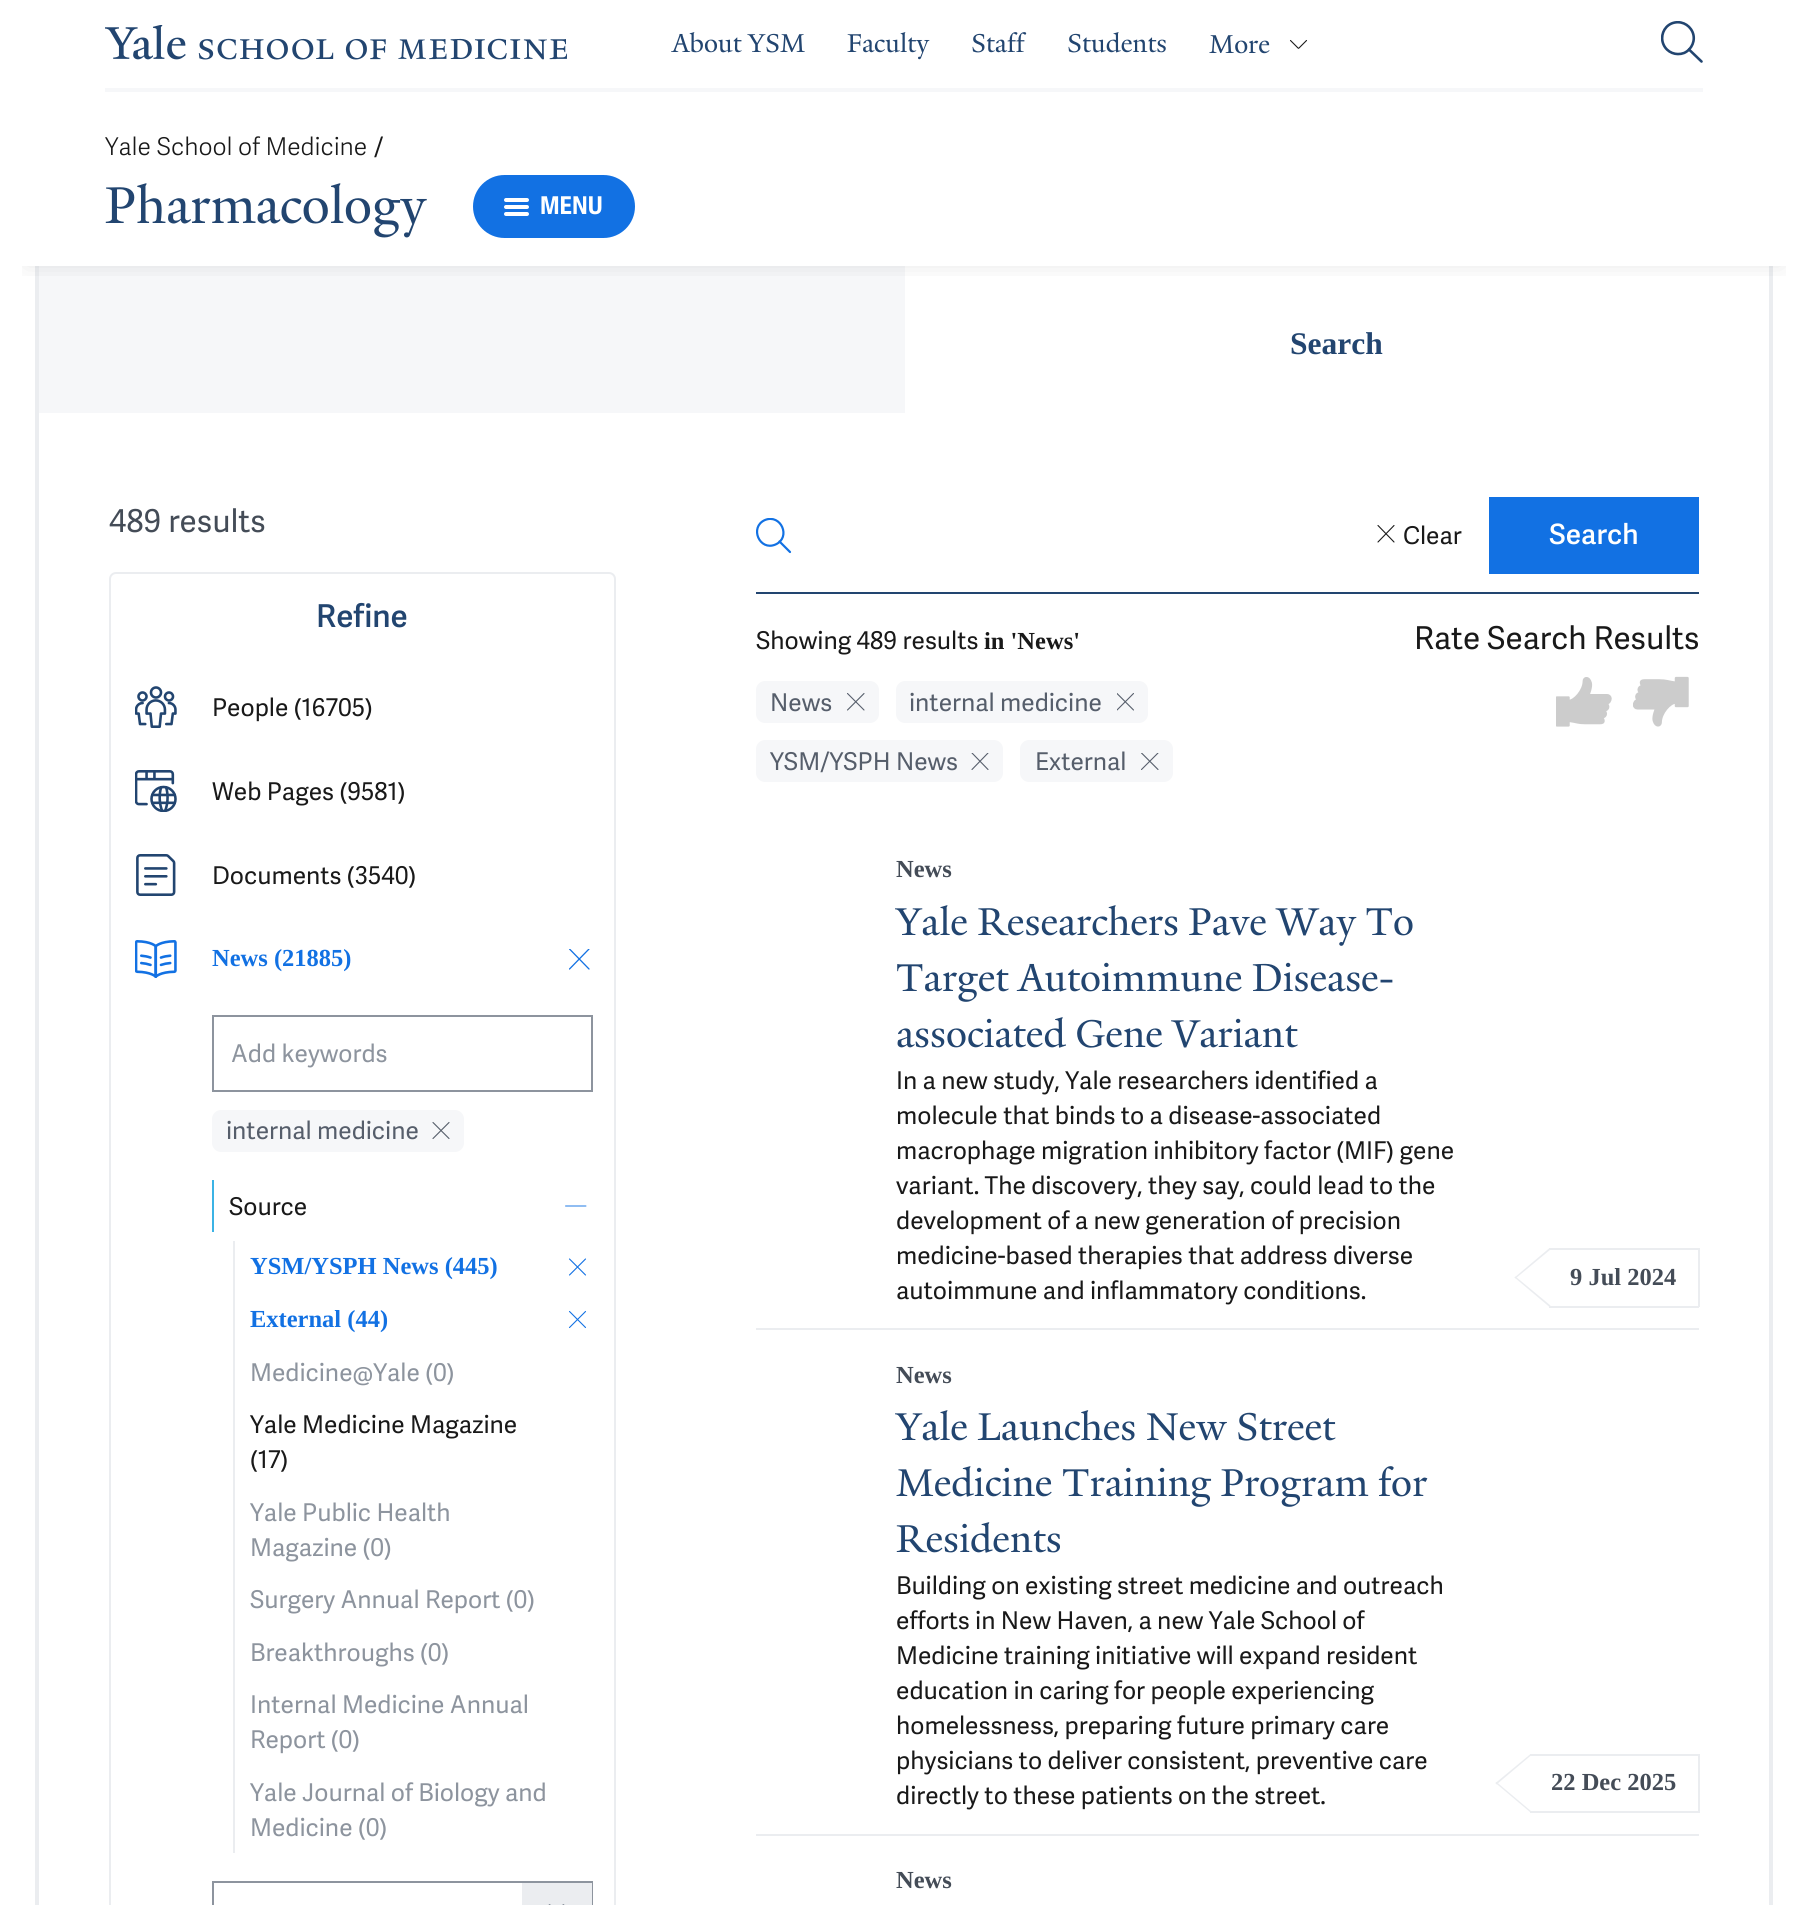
import math
import cairo



def rounded_rect(context, x, y, w, h, r):
    context.new_sub_path()
    for i, (u, v) in enumerate([(x + w - r, y + h - r), (x + r, y + h - r), (x + r, y + r), (x + w - r, y + r)]):
        context.arc(u, v, r, i * math.pi / 2, (i + 1) * math.pi / 2)
    context.close_path()


def draw_shadow(context, x, y, w, h, r, blur, alpha):
    context.push_group_with_content(cairo.Content.ALPHA)
    context.set_operator(cairo.Operator.SOURCE)
    for i in range(15, -16, -2):
        e = blur * i / 6
        if min(w, h) + 2 * e > 0:
            context.set_source_rgba(0, 0, 0, alpha * math.erfc((i - 1) / 8.5) / 2)
            rounded_rect(context, x - e, y - e, w + 2 * e, h + 2 * e, max(0, min(r + e + blur * .6, min(w, h) / 2 + e)))
            context.fill()
    context.mask(context.pop_group())


def draw_image(context, path, x, y, w, h):
    context.save()
    context.set_source_surface(cairo.ImageSurface.create_from_png(path), x, y)
    context.rectangle(x, y, w, h)
    context.fill()
    context.restore()


def draw(context):
    context.set_source_rgb(1, 1, 1)
    context.paint()
    context.set_source_rgb(235 / 255, 237 / 255, 240 / 255)
    context.rectangle(1769, 266, 4, 1639)
    context.fill()
    context.rectangle(35, 266, 4, 1639)
    context.fill()
    context.set_source_rgb(246 / 255, 247 / 255, 249 / 255)
    context.rectangle(39, 266, 866, 147)
    context.fill()
    context.save()
    context.rectangle(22, 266, 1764, 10)
    context.clip()
    context.set_source_rgb(25 / 255, 25 / 255, 25 / 255)
    draw_shadow(context, 25, 49, 1758, 217, 0, 12, 0.1)
    context.restore()
    context.rectangle(105, 88, 1598, 4)
    context.fill()
    draw_image(context, "images/1.png", 105, 25, 462, 35)
    context.new_path()
    context.move_to(1306.5, 40.5)
    context.line_to(1299, 48)
    context.curve_to(1298.5, 48.5, 1298.5, 48.5, 1298, 48)
    context.line_to(1290.5, 40.5)
    context.set_source_rgb(25 / 255, 25 / 255, 25 / 255)
    context.set_line_width(1.1)
    context.set_line_cap(cairo.LineCap.ROUND)
    context.set_line_join(cairo.LineJoin.ROUND)
    context.stroke()
    context.save()
    context.rectangle(1661, 21, 42, 42)
    context.clip()
    context.new_path()
    context.move_to(1671.5, 23.5)
    context.curve_to(1680, 20, 1689, 24, 1692.5, 32)
    context.curve_to(1696, 40, 1692, 49.5, 1684, 53)
    context.curve_to(1676, 56, 1667, 52.5, 1663.5, 44.5)
    context.curve_to(1660, 36.5, 1663.5, 27, 1671.5, 23.5)
    context.close_path()
    context.set_source_rgb(34 / 255, 69 / 255, 112 / 255)
    context.set_line_width(2.6)
    context.stroke()
    context.restore()
    context.new_path()
    context.move_to(1689, 49.5)
    context.line_to(1701.5, 61.5)
    context.set_source_rgb(34 / 255, 69 / 255, 112 / 255)
    context.set_line_width(2.6)
    context.stroke()
    context.set_source_rgb(18 / 255, 113 / 255, 227 / 255)
    rounded_rect(context, 473, 175, 162, 63, 31.5)
    context.fill()
    context.set_source_rgb(1, 1, 1)
    rounded_rect(context, 504, 198, 25, 4, 2)
    context.fill()
    rounded_rect(context, 504, 205, 25, 4, 2)
    context.fill()
    rounded_rect(context, 504, 212, 25, 4, 2)
    context.fill()
    rounded_rect(context, 110, 573, 505, 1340, 6)
    context.set_source_rgb(235 / 255, 237 / 255, 240 / 255)
    context.set_line_width(2)
    context.set_line_cap(cairo.LineCap.BUTT)
    context.set_line_join(cairo.LineJoin.MITER)
    context.stroke()
    draw_image(context, "images/2.png", 135, 686, 42, 42)
    draw_image(context, "images/3.png", 135, 770, 42, 42)
    draw_image(context, "images/4.png", 136, 854, 40, 42)
    draw_image(context, "images/5.png", 135, 940, 42, 38)
    context.save()
    context.rectangle(569, 949, 21, 21)
    context.clip()
    context.new_path()
    context.move_to(569.5, 969)
    context.line_to(589, 949)
    context.move_to(589, 969)
    context.line_to(569.5, 949)
    context.set_source_rgb(18 / 255, 113 / 255, 227 / 255)
    context.set_line_width(1.3)
    context.set_line_cap(cairo.LineCap.ROUND)
    context.set_line_join(cairo.LineJoin.ROUND)
    context.stroke()
    context.restore()
    context.rectangle(213, 1016, 379, 75)
    context.set_source_rgb(141 / 255, 148 / 255, 158 / 255)
    context.stroke()
    context.set_source_rgb(246 / 255, 247 / 255, 249 / 255)
    rounded_rect(context, 212, 1110, 252, 42, 9)
    context.fill()
    context.new_path()
    context.move_to(433, 1138.5)
    context.line_to(449, 1122.5)
    context.move_to(449, 1138.5)
    context.line_to(433, 1122.5)
    context.set_source_rgb(86 / 255, 94 / 255, 107 / 255)
    context.set_line_width(1.1)
    context.set_line_cap(cairo.LineCap.ROUND)
    context.set_line_join(cairo.LineJoin.ROUND)
    context.stroke()
    context.set_source_rgb(59 / 255, 179 / 255, 229 / 255)
    context.rectangle(212, 1180, 2, 52)
    context.fill()
    context.new_path()
    context.move_to(586, 1206)
    context.line_to(565.5, 1206)
    context.set_source_rgb(18 / 255, 113 / 255, 227 / 255)
    context.set_line_width(0.9)
    context.stroke()
    context.set_source_rgb(235 / 255, 237 / 255, 240 / 255)
    context.rectangle(233, 1241, 2, 612)
    context.fill()
    context.new_path()
    context.move_to(569.5, 1275)
    context.line_to(585.5, 1259)
    context.move_to(585.5, 1275)
    context.line_to(569.5, 1259)
    context.set_source_rgb(18 / 255, 113 / 255, 227 / 255)
    context.set_line_width(1.1)
    context.stroke()
    context.new_path()
    context.move_to(569.5, 1327.5)
    context.line_to(585.5, 1311.5)
    context.move_to(585.5, 1327.5)
    context.line_to(569.5, 1311.5)
    context.stroke()
    context.rectangle(213, 1882, 379, 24)
    context.set_source_rgb(141 / 255, 148 / 255, 158 / 255)
    context.set_line_width(2)
    context.set_line_cap(cairo.LineCap.BUTT)
    context.set_line_join(cairo.LineJoin.MITER)
    context.stroke()
    context.set_source_rgb(235 / 255, 237 / 255, 240 / 255)
    context.rectangle(522, 1883, 70, 22)
    context.fill()
    draw_image(context, "images/6.png", 548, 1904, 17, 1)
    context.set_source_rgb(34 / 255, 69 / 255, 112 / 255)
    context.rectangle(756, 592, 943, 2)
    context.fill()
    context.save()
    context.rectangle(756, 518, 35, 35)
    context.clip()
    context.new_path()
    context.move_to(765, 520)
    context.curve_to(781, 513.5, 791.5, 537.5, 775.5, 544.5)
    context.curve_to(759.5, 551.5, 749, 527, 765, 520)
    context.close_path()
    context.set_source_rgb(18 / 255, 113 / 255, 227 / 255)
    context.set_line_width(2.2)
    context.set_line_cap(cairo.LineCap.ROUND)
    context.set_line_join(cairo.LineJoin.ROUND)
    context.stroke()
    context.restore()
    context.new_path()
    context.move_to(779.5, 541.5)
    context.line_to(790, 552)
    context.set_source_rgb(18 / 255, 113 / 255, 227 / 255)
    context.set_line_width(2.2)
    context.set_line_cap(cairo.LineCap.ROUND)
    context.set_line_join(cairo.LineJoin.ROUND)
    context.stroke()
    context.new_path()
    context.move_to(1378, 542)
    context.line_to(1394, 525.5)
    context.move_to(1394, 542)
    context.line_to(1378, 525.5)
    context.set_source_rgb(25 / 255, 25 / 255, 25 / 255)
    context.set_line_width(1.1)
    context.stroke()
    context.set_source_rgb(18 / 255, 113 / 255, 227 / 255)
    context.rectangle(1489, 497, 210, 77)
    context.fill()
    context.set_source_rgb(246 / 255, 247 / 255, 249 / 255)
    rounded_rect(context, 756, 681, 123, 42, 9)
    context.fill()
    context.new_path()
    context.move_to(847.5, 710)
    context.line_to(864, 693.5)
    context.move_to(864, 710)
    context.line_to(847.5, 693.5)
    context.set_source_rgb(86 / 255, 94 / 255, 107 / 255)
    context.stroke()
    context.set_source_rgb(246 / 255, 247 / 255, 249 / 255)
    rounded_rect(context, 896, 681, 252, 42, 9)
    context.fill()
    context.save()
    context.rectangle(1117, 693, 17, 18)
    context.clip()
    context.new_path()
    context.move_to(1117, 710)
    context.line_to(1133.5, 693.5)
    context.move_to(1133.5, 710)
    context.line_to(1117, 693.5)
    context.set_source_rgb(86 / 255, 94 / 255, 107 / 255)
    context.stroke()
    context.restore()
    rounded_rect(context, 756, 740, 247, 42, 9)
    context.fill()
    context.save()
    context.rectangle(971, 753, 18, 17)
    context.clip()
    context.new_path()
    context.move_to(972, 769.5)
    context.line_to(988, 753)
    context.move_to(988, 769.5)
    context.line_to(972, 753)
    context.set_source_rgb(86 / 255, 94 / 255, 107 / 255)
    context.stroke()
    context.restore()
    rounded_rect(context, 1020, 740, 153, 42, 9)
    context.fill()
    context.save()
    context.rectangle(1141, 753, 18, 17)
    context.clip()
    context.new_path()
    context.move_to(1141.5, 769.5)
    context.line_to(1158, 753)
    context.move_to(1158, 769.5)
    context.line_to(1141.5, 753)
    context.set_source_rgb(86 / 255, 94 / 255, 107 / 255)
    context.stroke()
    context.restore()
    draw_image(context, "images/7.png", 1556, 677, 56, 50)
    draw_image(context, "images/8.png", 1633, 676, 56, 51)
    context.set_source_rgb(235 / 255, 237 / 255, 240 / 255)
    context.rectangle(756, 1328, 943, 2)
    context.fill()
    context.rectangle(1549, 1248, 150, 2)
    context.fill()
    context.rectangle(1698, 1248, 2, 59)
    context.fill()
    context.rectangle(1549, 1306, 150, 2)
    context.fill()
    context.new_path()
    context.move_to(1549.5, 1307)
    context.line_to(1514.5, 1277.5)
    context.line_to(1515.5, 1276.5)
    context.line_to(1550.5, 1305.5)
    context.close_path()
    context.fill()
    context.new_path()
    context.move_to(1515.5, 1278.5)
    context.line_to(1514.5, 1277.5)
    context.line_to(1549.5, 1248)
    context.line_to(1550.5, 1249.5)
    context.close_path()
    context.fill()
    context.rectangle(756, 1834, 943, 2)
    context.fill()
    context.rectangle(1530, 1754, 169, 2)
    context.fill()
    context.rectangle(1698, 1754, 2, 59)
    context.fill()
    context.rectangle(1530, 1811, 169, 2)
    context.fill()
    context.new_path()
    context.move_to(1530.5, 1812.5)
    context.line_to(1495.5, 1783)
    context.line_to(1496.5, 1782)
    context.line_to(1531.5, 1811.5)
    context.close_path()
    context.fill()
    context.new_path()
    context.move_to(1496.5, 1784.5)
    context.line_to(1495.5, 1783)
    context.line_to(1530.5, 1754)
    context.line_to(1531.5, 1755)
    context.close_path()
    context.fill()
    context.select_font_face("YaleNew")
    context.set_font_size(28)
    context.set_source_rgb(34 / 255, 69 / 255, 112 / 255)
    context.move_to(672, 52)
    context.show_text("About YSM")
    context.move_to(847, 52)
    context.show_text("Faculty")
    context.move_to(971, 52)
    context.show_text("Staff")
    context.move_to(1067, 52)
    context.show_text("Students")
    context.move_to(1209, 53)
    context.show_text("More")
    context.select_font_face("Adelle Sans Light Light")
    context.set_font_size(24.5)
    context.set_source_rgb(25 / 255, 25 / 255, 25 / 255)
    context.move_to(105, 155)
    context.show_text("Yale School of Medicine")
    context.select_font_face("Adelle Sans")
    context.move_to(374, 155)
    context.show_text("/")
    context.select_font_face("YaleNew")
    context.set_font_size(56)
    context.set_source_rgb(34 / 255, 69 / 255, 112 / 255)
    context.move_to(105, 223)
    context.show_text("Pharmacology")
    context.select_font_face("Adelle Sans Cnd", cairo.FontSlant.NORMAL, cairo.FontWeight.BOLD)
    context.set_font_size(24.5)
    context.set_source_rgb(1, 1, 1)
    context.move_to(540, 214)
    context.show_text("MENU")
    context.select_font_face("Liberation Serif", cairo.FontSlant.NORMAL, cairo.FontWeight.BOLD)
    context.set_font_size(31.5)
    context.set_source_rgb(34 / 255, 69 / 255, 112 / 255)
    context.move_to(1290, 354)
    context.show_text("Search")
    context.select_font_face("Adelle Sans")
    context.set_source_rgb(68 / 255, 76 / 255, 87 / 255)
    context.move_to(109, 532)
    context.show_text("489 results")
    context.select_font_face("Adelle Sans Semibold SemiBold")
    context.set_source_rgb(34 / 255, 69 / 255, 112 / 255)
    context.move_to(316, 627)
    context.show_text("Refine")
    context.select_font_face("Adelle Sans")
    context.set_font_size(24.5)
    context.set_source_rgb(25 / 255, 25 / 255, 25 / 255)
    context.move_to(212, 716)
    context.show_text("People (16705)")
    context.move_to(212, 800)
    context.show_text("Web Pages (9581)")
    context.move_to(212, 884)
    context.show_text("Documents (3540)")
    context.select_font_face("Liberation Serif", cairo.FontSlant.NORMAL, cairo.FontWeight.BOLD)
    context.set_source_rgb(18 / 255, 113 / 255, 227 / 255)
    context.move_to(212, 966)
    context.show_text("News (21885)")
    context.select_font_face("Adelle Sans")
    context.set_source_rgb(141 / 255, 148 / 255, 158 / 255)
    context.move_to(231, 1062)
    context.show_text("Add keywords")
    context.set_source_rgb(86 / 255, 94 / 255, 107 / 255)
    context.move_to(226, 1139)
    context.show_text("internal medicine")
    context.set_source_rgb(25 / 255, 25 / 255, 25 / 255)
    context.move_to(229, 1215)
    context.show_text("Source")
    context.select_font_face("Liberation Serif", cairo.FontSlant.NORMAL, cairo.FontWeight.BOLD)
    context.set_source_rgb(18 / 255, 113 / 255, 227 / 255)
    context.move_to(250, 1274)
    context.show_text("YSM/YSPH News (445)")
    context.move_to(250, 1327)
    context.show_text("External (44)")
    context.select_font_face("Adelle Sans")
    context.set_source_rgb(141 / 255, 148 / 255, 158 / 255)
    context.move_to(250, 1381)
    context.show_text("Medicine@Yale (0)")
    context.set_source_rgb(25 / 255, 25 / 255, 25 / 255)
    context.move_to(250, 1433)
    context.show_text("Yale Medicine Magazine")
    context.move_to(250, 1468)
    context.show_text("(17)")
    context.set_source_rgb(141 / 255, 148 / 255, 158 / 255)
    context.move_to(250, 1521)
    context.show_text("Yale Public Health")
    context.move_to(250, 1556)
    context.show_text("Magazine (0)")
    context.move_to(250, 1608)
    context.show_text("Surgery Annual Report (0)")
    context.move_to(250, 1661)
    context.show_text("Breakthroughs (0)")
    context.move_to(250, 1713)
    context.show_text("Internal Medicine Annual")
    context.move_to(250, 1748)
    context.show_text("Report (0)")
    context.move_to(250, 1801)
    context.show_text("Yale Journal of Biology and")
    context.move_to(250, 1836)
    context.show_text("Medicine (0)")
    context.set_source_rgb(25 / 255, 25 / 255, 25 / 255)
    context.move_to(1403, 544)
    context.show_text("Clear")
    context.select_font_face("Adelle Sans Semibold SemiBold")
    context.set_font_size(28)
    context.set_source_rgb(1, 1, 1)
    context.move_to(1549, 544)
    context.show_text("Search")
    context.select_font_face("Adelle Sans")
    context.set_font_size(24.5)
    context.set_source_rgb(25 / 255, 25 / 255, 25 / 255)
    context.move_to(756, 649)
    context.show_text("Showing 489 results")
    context.select_font_face("Liberation Serif", cairo.FontSlant.NORMAL, cairo.FontWeight.BOLD)
    context.move_to(984, 649)
    context.show_text("in 'News'")
    context.select_font_face("Adelle Sans")
    context.set_source_rgb(86 / 255, 94 / 255, 107 / 255)
    context.move_to(770, 711)
    context.show_text("News")
    context.move_to(909, 711)
    context.show_text("internal medicine")
    context.move_to(770, 770)
    context.show_text("YSM/YSPH News")
    context.move_to(1035, 770)
    context.show_text("External")
    context.set_font_size(31.5)
    context.set_source_rgb(25 / 255, 25 / 255, 25 / 255)
    context.move_to(1414, 649)
    context.show_text("Rate Search Results")
    context.select_font_face("Liberation Serif", cairo.FontSlant.NORMAL, cairo.FontWeight.BOLD)
    context.set_font_size(24.5)
    context.set_source_rgb(68 / 255, 76 / 255, 87 / 255)
    context.move_to(896, 877)
    context.show_text("News")
    context.select_font_face("YaleNew")
    context.set_font_size(42)
    context.set_source_rgb(34 / 255, 69 / 255, 112 / 255)
    context.move_to(896, 935)
    context.show_text("Yale Researchers Pave Way To")
    context.move_to(896, 991)
    context.show_text("Target Autoimmune Disease-")
    context.move_to(896, 1047)
    context.show_text("associated Gene Variant")
    context.select_font_face("Adelle Sans")
    context.set_font_size(24.5)
    context.set_source_rgb(25 / 255, 25 / 255, 25 / 255)
    context.move_to(896, 1089)
    context.show_text("In a new study, Yale researchers identified a")
    context.move_to(896, 1124)
    context.show_text("molecule that binds to a disease-associated")
    context.move_to(896, 1159)
    context.show_text("macrophage migration inhibitory factor (MIF) gene")
    context.move_to(896, 1194)
    context.show_text("variant. The discovery, they say, could lead to the")
    context.move_to(896, 1229)
    context.show_text("development of a new generation of precision")
    context.move_to(896, 1264)
    context.show_text("medicine-based therapies that address diverse")
    context.move_to(896, 1299)
    context.show_text("autoimmune and inflammatory conditions.")
    context.select_font_face("Liberation Serif", cairo.FontSlant.NORMAL, cairo.FontWeight.BOLD)
    context.set_source_rgb(68 / 255, 76 / 255, 87 / 255)
    context.move_to(1570, 1285)
    context.show_text("9 Jul 2024")
    context.move_to(896, 1383)
    context.show_text("News")
    context.select_font_face("YaleNew")
    context.set_font_size(42)
    context.set_source_rgb(34 / 255, 69 / 255, 112 / 255)
    context.move_to(896, 1440)
    context.show_text("Yale Launches New Street")
    context.move_to(896, 1496)
    context.show_text("Medicine Training Program for")
    context.move_to(896, 1552)
    context.show_text("Residents")
    context.select_font_face("Adelle Sans")
    context.set_font_size(24.5)
    context.set_source_rgb(25 / 255, 25 / 255, 25 / 255)
    context.move_to(896, 1594)
    context.show_text("Building on existing street medicine and outreach")
    context.move_to(896, 1629)
    context.show_text("efforts in New Haven, a new Yale School of")
    context.move_to(896, 1664)
    context.show_text("Medicine training initiative will expand resident")
    context.move_to(896, 1699)
    context.show_text("education in caring for people experiencing")
    context.move_to(896, 1734)
    context.show_text("homelessness, preparing future primary care")
    context.move_to(896, 1769)
    context.show_text("physicians to deliver consistent, preventive care")
    context.move_to(896, 1804)
    context.show_text("directly to these patients on the street.")
    context.select_font_face("Liberation Serif", cairo.FontSlant.NORMAL, cairo.FontWeight.BOLD)
    context.set_source_rgb(68 / 255, 76 / 255, 87 / 255)
    context.move_to(1551, 1790)
    context.show_text("22 Dec 2025")
    context.move_to(896, 1888)
    context.show_text("News")


surface = cairo.ImageSurface(cairo.Format.RGB24, 1807, 1905)
context = cairo.Context(surface)
options = cairo.FontOptions()
options.set_hint_metrics(cairo.HintMetrics.OFF)
options.set_hint_style(cairo.HintStyle.NONE)
context.set_font_options(options)
context.set_miter_limit(4)
draw(context)
surface.write_to_png("out.png")
